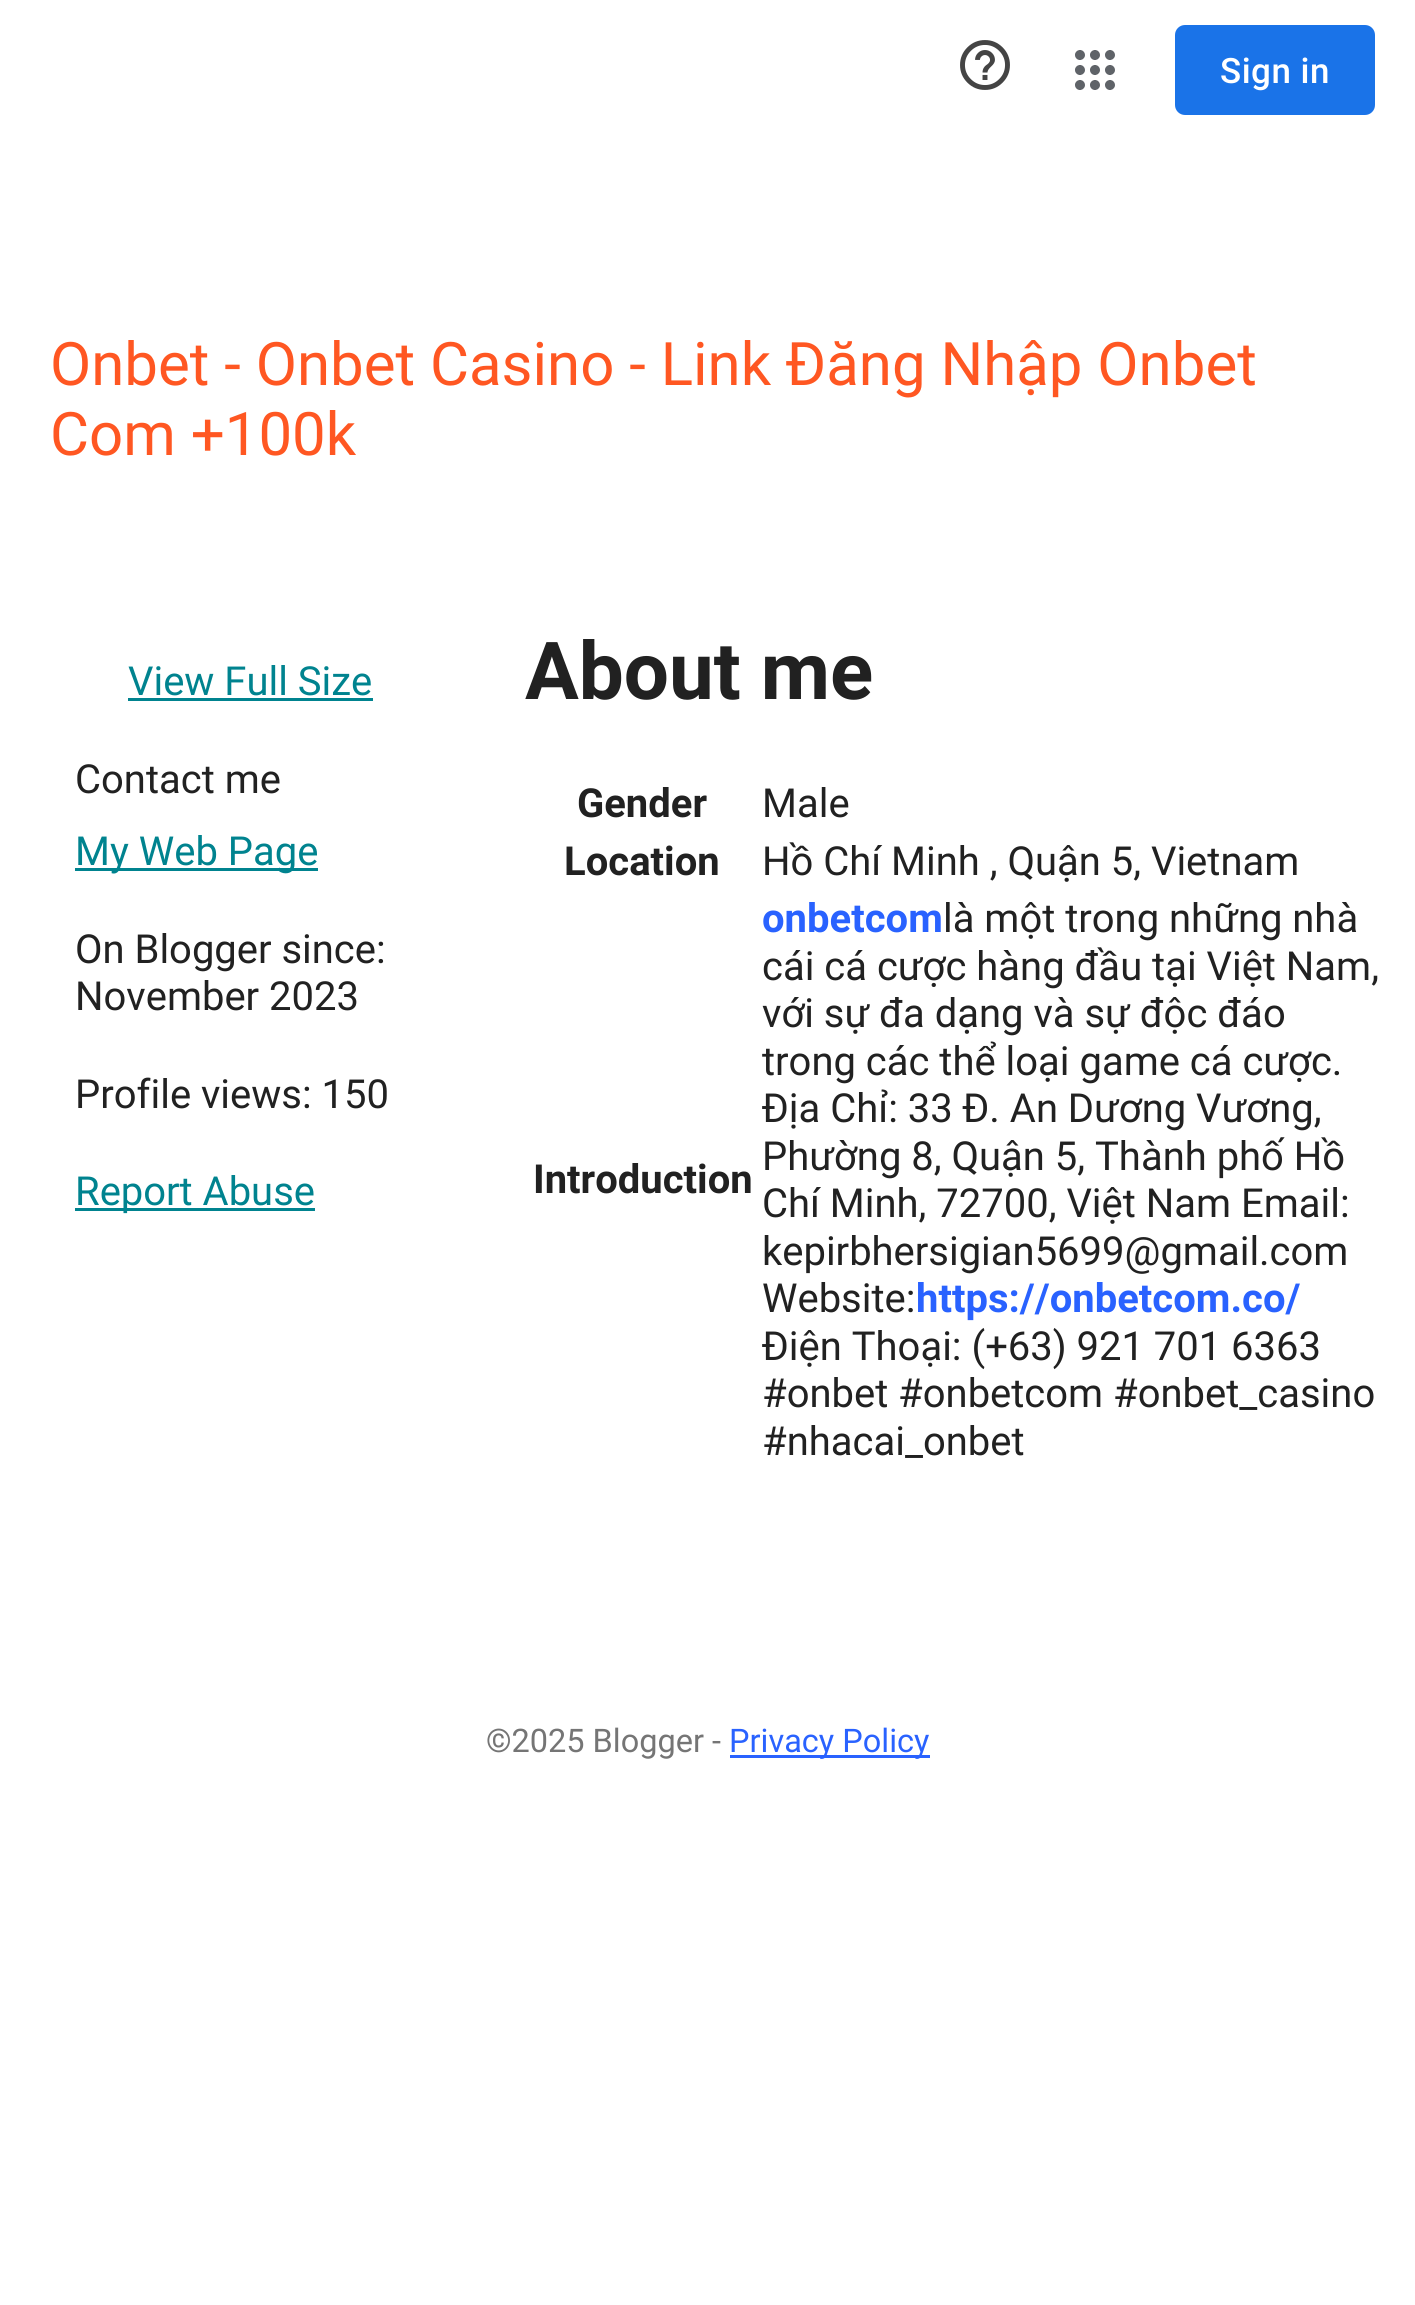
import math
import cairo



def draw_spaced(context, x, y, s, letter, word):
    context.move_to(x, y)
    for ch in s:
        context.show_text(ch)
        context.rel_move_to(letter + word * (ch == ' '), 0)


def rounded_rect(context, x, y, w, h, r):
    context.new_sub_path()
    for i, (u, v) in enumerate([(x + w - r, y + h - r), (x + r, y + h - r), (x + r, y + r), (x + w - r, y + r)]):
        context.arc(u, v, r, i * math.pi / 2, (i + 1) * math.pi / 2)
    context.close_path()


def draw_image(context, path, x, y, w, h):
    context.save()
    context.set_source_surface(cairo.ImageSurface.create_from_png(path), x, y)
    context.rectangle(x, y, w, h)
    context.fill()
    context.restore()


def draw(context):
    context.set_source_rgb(1, 1, 1)
    context.paint()
    draw_image(context, "images/1.png", 960, 40, 50, 50)
    draw_image(context, "images/2.png", 1075, 50, 40, 40)
    context.set_source_rgb(26 / 255, 115 / 255, 232 / 255)
    rounded_rect(context, 1175, 25, 200, 90, 10)
    context.fill()
    context.set_source_rgb(0, 131 / 255, 143 / 255)
    context.rectangle(128, 698, 245, 3)
    context.fill()
    context.rectangle(75, 868, 243, 3)
    context.fill()
    context.rectangle(75, 1208, 240, 3)
    context.fill()
    context.set_source_rgb(41 / 255, 98 / 255, 1)
    context.rectangle(730, 1755, 200, 3)
    context.fill()
    context.select_font_face("Roboto Medium")
    context.set_font_size(35)
    context.set_source_rgb(1, 1, 1)
    draw_spaced(context, 1220, 83, "Sign in", 0.5, 0)
    context.select_font_face("Roboto")
    context.set_font_size(60)
    context.set_source_rgb(1, 87 / 255, 34 / 255)
    context.move_to(50, 385)
    context.show_text("Onbet - Onbet Casino - Link Đăng Nhập Onbet")
    context.move_to(50, 455)
    context.show_text("Com +100k")
    context.set_font_size(40)
    context.set_source_rgb(0, 131 / 255, 143 / 255)
    context.move_to(128, 695)
    context.show_text("View Full Size")
    context.set_source_rgb(33 / 255, 33 / 255, 33 / 255)
    context.move_to(75, 793)
    context.show_text("Contact me")
    context.set_source_rgb(0, 131 / 255, 143 / 255)
    context.move_to(75, 865)
    context.show_text("My Web Page")
    context.set_source_rgb(33 / 255, 33 / 255, 33 / 255)
    context.move_to(75, 963)
    context.show_text("On Blogger since:")
    context.move_to(75, 1010)
    context.show_text("November 2023")
    context.move_to(75, 1108)
    context.show_text("Profile views: 150")
    context.set_source_rgb(0, 131 / 255, 143 / 255)
    context.move_to(75, 1205)
    context.show_text("Report Abuse")
    context.select_font_face("Roboto", cairo.FontSlant.NORMAL, cairo.FontWeight.BOLD)
    context.set_font_size(80)
    context.set_source_rgb(33 / 255, 33 / 255, 33 / 255)
    context.move_to(525, 699)
    context.show_text("About me")
    context.set_font_size(40)
    context.move_to(577, 817)
    context.show_text("Gender")
    context.select_font_face("Roboto")
    context.move_to(762, 817)
    context.show_text("Male")
    context.select_font_face("Roboto", cairo.FontSlant.NORMAL, cairo.FontWeight.BOLD)
    context.move_to(564, 875)
    context.show_text("Location")
    context.select_font_face("Roboto")
    context.move_to(762, 875)
    context.show_text("Hồ Chí Minh , Quận 5, Vietnam")
    context.select_font_face("Roboto", cairo.FontSlant.NORMAL, cairo.FontWeight.BOLD)
    context.move_to(533, 1193)
    context.show_text("Introduction")
    context.set_source_rgb(41 / 255, 98 / 255, 1)
    context.move_to(762, 932)
    context.show_text("onbetcom")
    context.select_font_face("Roboto")
    context.set_source_rgb(33 / 255, 33 / 255, 33 / 255)
    context.move_to(943, 932)
    context.show_text("là một trong những nhà")
    context.move_to(762, 980)
    context.show_text("cái cá cược hàng đầu tại Việt Nam,")
    context.move_to(762, 1027)
    context.show_text("với sự đa dạng và sự độc đáo")
    context.move_to(762, 1075)
    context.show_text("trong các thể loại game cá cược.")
    context.move_to(762, 1122)
    context.show_text("Địa Chỉ: 33 Đ. An Dương Vương,")
    context.move_to(762, 1170)
    context.show_text("Phường 8, Quận 5, Thành phố Hồ")
    context.move_to(762, 1217)
    context.show_text("Chí Minh, 72700, Việt Nam Email:")
    context.move_to(762, 1265)
    context.show_text("kepirbhersigian5699@gmail.com")
    context.move_to(762, 1312)
    context.show_text("Website:")
    context.select_font_face("Roboto", cairo.FontSlant.NORMAL, cairo.FontWeight.BOLD)
    context.set_source_rgb(41 / 255, 98 / 255, 1)
    context.move_to(916, 1312)
    context.show_text("https://onbetcom.co/")
    context.select_font_face("Roboto")
    context.set_source_rgb(33 / 255, 33 / 255, 33 / 255)
    context.move_to(762, 1360)
    context.show_text("Điện Thoại: (+63) 921 701 6363")
    context.move_to(762, 1407)
    context.show_text("#onbet #onbetcom #onbet_casino")
    context.move_to(762, 1455)
    context.show_text("#nhacai_onbet")
    context.set_font_size(32.5)
    context.set_source_rgb(117 / 255, 117 / 255, 117 / 255)
    context.move_to(486, 1752)
    context.show_text("©2025 Blogger -")
    context.set_source_rgb(41 / 255, 98 / 255, 1)
    context.move_to(729, 1752)
    context.show_text("Privacy Policy")


surface = cairo.ImageSurface(cairo.Format.RGB24, 1415, 2305)
context = cairo.Context(surface)
options = cairo.FontOptions()
options.set_hint_metrics(cairo.HintMetrics.OFF)
options.set_hint_style(cairo.HintStyle.NONE)
context.set_font_options(options)
context.set_miter_limit(4)
draw(context)
surface.write_to_png("out.png")
